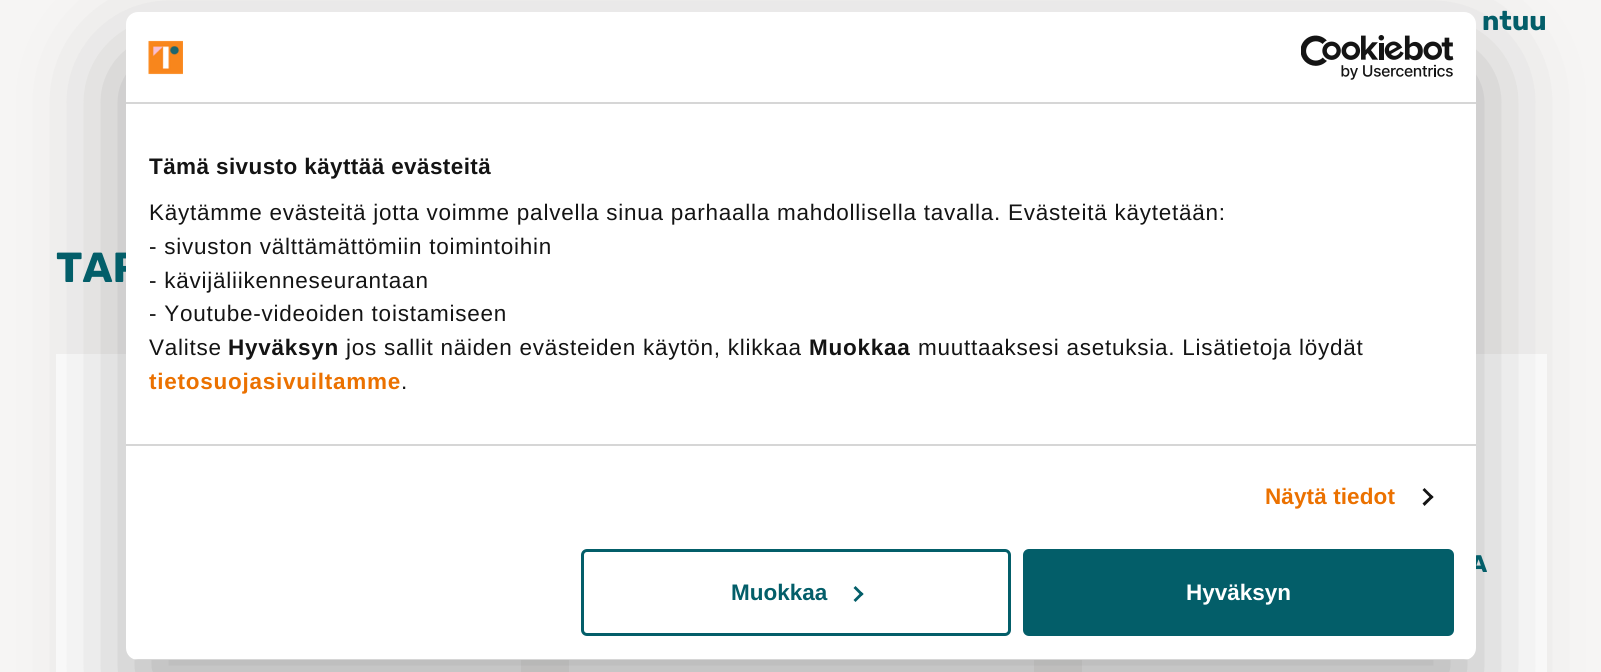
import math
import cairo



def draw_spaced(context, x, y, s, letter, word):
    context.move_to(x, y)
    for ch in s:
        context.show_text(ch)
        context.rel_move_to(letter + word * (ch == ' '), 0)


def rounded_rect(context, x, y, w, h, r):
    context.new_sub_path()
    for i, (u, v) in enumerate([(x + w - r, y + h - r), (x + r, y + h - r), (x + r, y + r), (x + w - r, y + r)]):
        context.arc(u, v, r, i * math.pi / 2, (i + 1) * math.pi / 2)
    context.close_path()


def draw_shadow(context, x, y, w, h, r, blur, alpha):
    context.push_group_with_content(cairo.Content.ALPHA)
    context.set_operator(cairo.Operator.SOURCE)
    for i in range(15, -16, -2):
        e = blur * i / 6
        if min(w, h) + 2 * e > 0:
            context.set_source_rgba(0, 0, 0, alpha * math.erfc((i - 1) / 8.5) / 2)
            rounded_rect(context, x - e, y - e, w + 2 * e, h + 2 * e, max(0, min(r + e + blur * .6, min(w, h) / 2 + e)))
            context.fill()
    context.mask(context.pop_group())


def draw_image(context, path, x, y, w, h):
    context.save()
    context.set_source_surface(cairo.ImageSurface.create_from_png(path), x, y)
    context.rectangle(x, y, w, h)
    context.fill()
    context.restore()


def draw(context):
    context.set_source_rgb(246 / 255, 245 / 255, 244 / 255)
    context.paint()
    context.set_source_rgb(1, 1, 1)
    context.rectangle(56, 354, 465, 318)
    context.fill()
    context.rectangle(1082, 354, 465, 318)
    context.fill()
    context.rectangle(569, 660, 465, 12)
    context.fill()
    context.set_source_rgb(0, 0, 0)
    draw_shadow(context, 126, 60, 1350, 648, 12, 51, 0.3)
    context.select_font_face("Rubik", cairo.FontSlant.NORMAL, cairo.FontWeight.BOLD)
    context.set_font_size(27)
    context.set_source_rgb(3 / 255, 94 / 255, 105 / 255)
    context.move_to(1482, 30)
    context.show_text("ntuu")
    context.set_font_size(42)
    context.move_to(56, 282)
    context.show_text("TAP")
    context.set_font_size(24)
    context.move_to(1470, 572)
    context.show_text("A")
    context.set_source_rgb(1, 1, 1)
    rounded_rect(context, 126, 12, 1350, 648, 12)
    context.fill()
    context.set_source_rgb(214 / 255, 214 / 255, 214 / 255)
    context.rectangle(126, 102, 1350, 2)
    context.fill()
    draw_image(context, "images/1.png", 148, 40, 35, 35)
    draw_image(context, "images/2.png", 1301, 35, 153, 45)
    context.rectangle(126, 444, 1350, 2)
    context.fill()
    context.select_font_face("Liberation Sans", cairo.FontSlant.NORMAL, cairo.FontWeight.BOLD)
    context.set_font_size(22.5)
    context.set_source_rgb(20 / 255, 20 / 255, 20 / 255)
    draw_spaced(context, 149, 174, "Tämä sivusto käyttää evästeitä", 0.4, 0)
    context.select_font_face("Liberation Sans")
    draw_spaced(context, 149, 220, "Käytämme evästeitä jotta voimme palvella sinua parhaalla mahdollisella tavalla. Evästeitä käytetään:", 0.75, 0)
    draw_spaced(context, 149, 254, "- sivuston välttämättömiin toimintoihin", 0.75, 0)
    draw_spaced(context, 149, 288, "- kävijäliikenneseurantaan", 0.75, 0)
    draw_spaced(context, 149, 321, "- Youtube-videoiden toistamiseen", 0.75, 0)
    draw_spaced(context, 149, 355, "Valitse", 0.75, 0)
    context.select_font_face("Liberation Sans", cairo.FontSlant.NORMAL, cairo.FontWeight.BOLD)
    draw_spaced(context, 228, 355, "Hyväksyn", 0.75, 0)
    context.select_font_face("Liberation Sans")
    draw_spaced(context, 346, 355, "jos sallit näiden evästeiden käytön, klikkaa", 0.75, 0)
    context.select_font_face("Liberation Sans", cairo.FontSlant.NORMAL, cairo.FontWeight.BOLD)
    draw_spaced(context, 809, 355, "Muokkaa", 0.75, 0)
    context.select_font_face("Liberation Sans")
    draw_spaced(context, 918, 355, "muuttaaksesi asetuksia. Lisätietoja löydät", 0.75, 0)
    context.select_font_face("Liberation Sans", cairo.FontSlant.NORMAL, cairo.FontWeight.BOLD)
    context.set_source_rgb(235 / 255, 113 / 255, 0)
    draw_spaced(context, 149, 389, "tietosuojasivuiltamme", 0.75, 0)
    context.select_font_face("Liberation Sans")
    context.set_source_rgb(20 / 255, 20 / 255, 20 / 255)
    draw_spaced(context, 401, 389, ".", 0.75, 0)
    context.select_font_face("Liberation Sans", cairo.FontSlant.NORMAL, cairo.FontWeight.BOLD)
    context.set_source_rgb(235 / 255, 113 / 255, 0)
    draw_spaced(context, 1265, 504, "Näytä tiedot", 0.1, 0)
    context.set_source_rgb(20 / 255, 20 / 255, 20 / 255)
    context.new_path()
    context.move_to(1424.5, 488)
    context.line_to(1433.5, 497)
    context.line_to(1431.5, 499)
    context.line_to(1422.5, 490)
    context.close_path()
    context.fill()
    context.new_path()
    context.move_to(1431.5, 495)
    context.line_to(1433.5, 497)
    context.line_to(1424.5, 506)
    context.line_to(1422.5, 503.5)
    context.close_path()
    context.fill()
    context.save()
    rounded_rect(context, 126, 12, 1350, 648, 12)
    context.clip()
    context.set_source_rgb(214 / 255, 214 / 255, 214 / 255)
    context.rectangle(126, 659, 1350, 1)
    context.fill()
    context.restore()
    rounded_rect(context, 582.5, 550.5, 427, 84, 4.5)
    context.set_source_rgb(3 / 255, 94 / 255, 105 / 255)
    context.set_line_width(3)
    context.stroke()
    context.move_to(731, 600)
    context.show_text("Muokkaa")
    context.new_path()
    context.move_to(855.5, 586)
    context.line_to(863.5, 594)
    context.line_to(861.5, 596)
    context.line_to(853.5, 588)
    context.close_path()
    context.fill()
    context.new_path()
    context.move_to(861.5, 592)
    context.line_to(863.5, 594)
    context.line_to(855.5, 602)
    context.line_to(853.5, 600)
    context.close_path()
    context.fill()
    rounded_rect(context, 1024.5, 550.5, 428, 84, 4.5)
    context.fill_preserve()
    context.stroke()
    context.set_source_rgb(1, 1, 1)
    context.move_to(1186, 600)
    context.show_text("Hyväksyn")


surface = cairo.ImageSurface(cairo.Format.RGB24, 1601, 672)
context = cairo.Context(surface)
options = cairo.FontOptions()
options.set_hint_metrics(cairo.HintMetrics.OFF)
options.set_hint_style(cairo.HintStyle.NONE)
context.set_font_options(options)
context.set_miter_limit(4)
draw(context)
surface.write_to_png("out.png")
